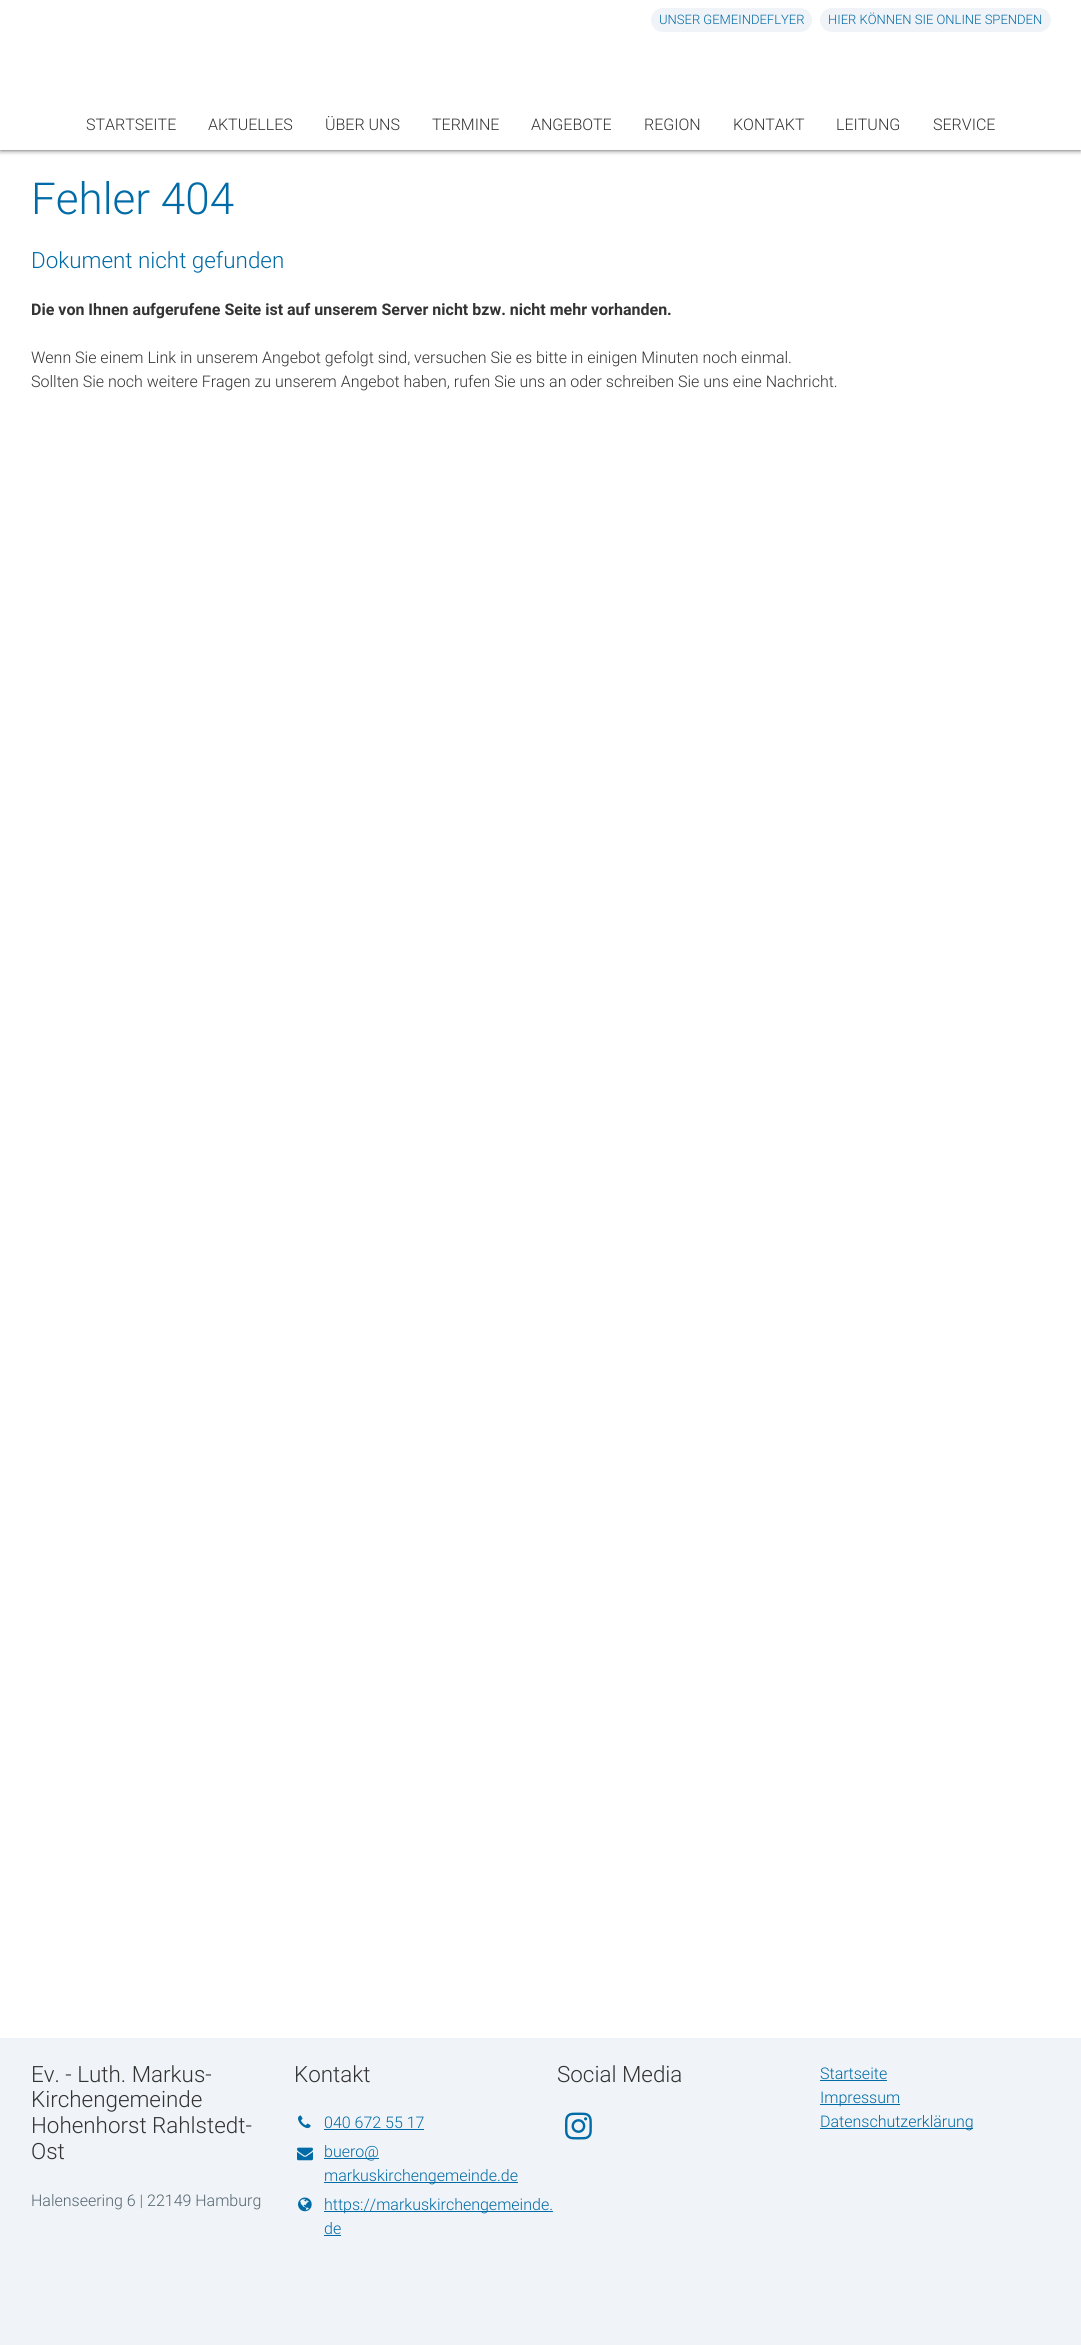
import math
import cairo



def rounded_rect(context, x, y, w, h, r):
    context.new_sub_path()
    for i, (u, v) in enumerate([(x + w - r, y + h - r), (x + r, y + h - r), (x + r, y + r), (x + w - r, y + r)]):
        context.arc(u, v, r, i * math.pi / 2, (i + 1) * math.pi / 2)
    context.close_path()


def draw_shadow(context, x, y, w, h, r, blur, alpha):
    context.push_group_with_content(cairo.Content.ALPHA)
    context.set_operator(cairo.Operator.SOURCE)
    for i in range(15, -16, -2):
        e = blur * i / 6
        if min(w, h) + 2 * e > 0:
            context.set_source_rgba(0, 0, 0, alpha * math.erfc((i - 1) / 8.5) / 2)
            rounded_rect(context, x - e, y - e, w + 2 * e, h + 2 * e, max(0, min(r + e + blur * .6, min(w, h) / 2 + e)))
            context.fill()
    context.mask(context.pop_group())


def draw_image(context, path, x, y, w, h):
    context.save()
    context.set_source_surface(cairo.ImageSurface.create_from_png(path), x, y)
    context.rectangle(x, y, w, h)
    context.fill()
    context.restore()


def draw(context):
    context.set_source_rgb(1, 1, 1)
    context.paint()
    context.set_source_rgb(0, 0, 0)
    draw_shadow(context, 0, 103, 1081, 50, 0, 1.5, 0.2)
    draw_shadow(context, 0, 101, 1081, 50, 0, 0.5, 0.2)
    context.set_source_rgb(1, 1, 1)
    context.rectangle(0, 100, 1081, 50)
    context.fill()
    context.set_source_rgb(240 / 255, 243 / 255, 247 / 255)
    rounded_rect(context, 651, 8, 161, 24, 12)
    context.fill()
    rounded_rect(context, 820, 8, 231, 24, 12)
    context.fill()
    context.rectangle(0, 2038, 1081, 307)
    context.fill()
    draw_image(context, "images/1.png", 298, 2115, 13, 14)
    context.set_source_rgb(0, 107 / 255, 166 / 255)
    context.rectangle(324, 2129, 100, 1)
    context.fill()
    draw_image(context, "images/2.png", 297, 2147, 16, 14)
    context.rectangle(324, 2158, 55, 1)
    context.fill()
    context.rectangle(324, 2182, 194, 1)
    context.fill()
    draw_image(context, "images/3.png", 298, 2197, 14, 15)
    context.rectangle(324, 2211, 229, 1)
    context.fill()
    context.rectangle(324, 2235, 17, 1)
    context.fill()
    draw_image(context, "images/4.png", 565, 2112, 27, 28)
    context.rectangle(820, 2080, 67, 1)
    context.fill()
    context.rectangle(820, 2104, 80, 1)
    context.fill()
    context.rectangle(820, 2128, 153, 1)
    context.fill()
    context.select_font_face("Roboto Light")
    context.set_font_size(13)
    context.move_to(659, 24)
    context.show_text("UNSER GEMEINDEFLYER")
    context.move_to(828, 24)
    context.show_text("HIER KÖNNEN SIE ONLINE SPENDEN")
    context.set_font_size(16)
    context.set_source_rgb(51 / 255, 51 / 255, 51 / 255)
    context.move_to(86, 130)
    context.show_text("STARTSEITE")
    context.move_to(208, 130)
    context.show_text("AKTUELLES")
    context.move_to(325, 130)
    context.show_text("ÜBER UNS")
    context.move_to(432, 130)
    context.show_text("TERMINE")
    context.move_to(531, 130)
    context.show_text("ANGEBOTE")
    context.move_to(644, 130)
    context.show_text("REGION")
    context.move_to(733, 130)
    context.show_text("KONTAKT")
    context.move_to(836, 130)
    context.show_text("LEITUNG")
    context.move_to(933, 130)
    context.show_text("SERVICE")
    context.set_font_size(44)
    context.set_source_rgb(0, 107 / 255, 166 / 255)
    context.move_to(31, 214)
    context.show_text("Fehler 404")
    context.set_font_size(22.4)
    context.move_to(31, 268)
    context.show_text("Dokument nicht gefunden")
    context.select_font_face("Roboto", cairo.FontSlant.NORMAL, cairo.FontWeight.BOLD)
    context.set_font_size(16)
    context.set_source_rgb(51 / 255, 51 / 255, 51 / 255)
    context.move_to(31, 315)
    context.show_text("Die von Ihnen aufgerufene Seite ist auf unserem Server nicht bzw. nicht mehr vorhanden.")
    context.select_font_face("Roboto Light")
    context.move_to(31, 363)
    context.show_text("Wenn Sie einem Link in unserem Angebot gefolgt sind, versuchen Sie es bitte in einigen Minuten noch einmal.")
    context.move_to(31, 387)
    context.show_text("Sollten Sie noch weitere Fragen zu unserem Angebot haben, rufen Sie uns an oder schreiben Sie uns eine Nachricht.")
    context.set_font_size(22.4)
    context.move_to(31, 2082)
    context.show_text("Ev. - Luth. Markus-")
    context.move_to(31, 2107)
    context.show_text("Kirchengemeinde")
    context.move_to(31, 2133)
    context.show_text("Hohenhorst Rahlstedt-")
    context.move_to(31, 2159)
    context.show_text("Ost")
    context.set_font_size(16)
    context.set_source_rgb(83 / 255, 101 / 255, 110 / 255)
    context.move_to(31, 2206)
    context.show_text("Halenseering 6 | 22149 Hamburg")
    context.set_font_size(22.4)
    context.set_source_rgb(51 / 255, 51 / 255, 51 / 255)
    context.move_to(294, 2082)
    context.show_text("Kontakt")
    context.set_font_size(16)
    context.set_source_rgb(0, 107 / 255, 166 / 255)
    context.move_to(324, 2128)
    context.show_text("040 672 55 17")
    context.move_to(324, 2157)
    context.show_text("buero@")
    context.move_to(324, 2181)
    context.show_text("markuskirchengemeinde.de")
    context.move_to(324, 2210)
    context.show_text("https://markuskirchengemeinde.")
    context.move_to(324, 2234)
    context.show_text("de")
    context.set_font_size(22.4)
    context.set_source_rgb(51 / 255, 51 / 255, 51 / 255)
    context.move_to(557, 2082)
    context.show_text("Social Media")
    context.set_font_size(16)
    context.set_source_rgb(0, 107 / 255, 166 / 255)
    context.move_to(820, 2079)
    context.show_text("Startseite")
    context.move_to(820, 2103)
    context.show_text("Impressum")
    context.move_to(820, 2127)
    context.show_text("Datenschutzerklärung")


surface = cairo.ImageSurface(cairo.Format.RGB24, 1081, 2345)
context = cairo.Context(surface)
options = cairo.FontOptions()
options.set_hint_metrics(cairo.HintMetrics.OFF)
options.set_hint_style(cairo.HintStyle.NONE)
context.set_font_options(options)
context.set_miter_limit(4)
draw(context)
surface.write_to_png("out.png")
